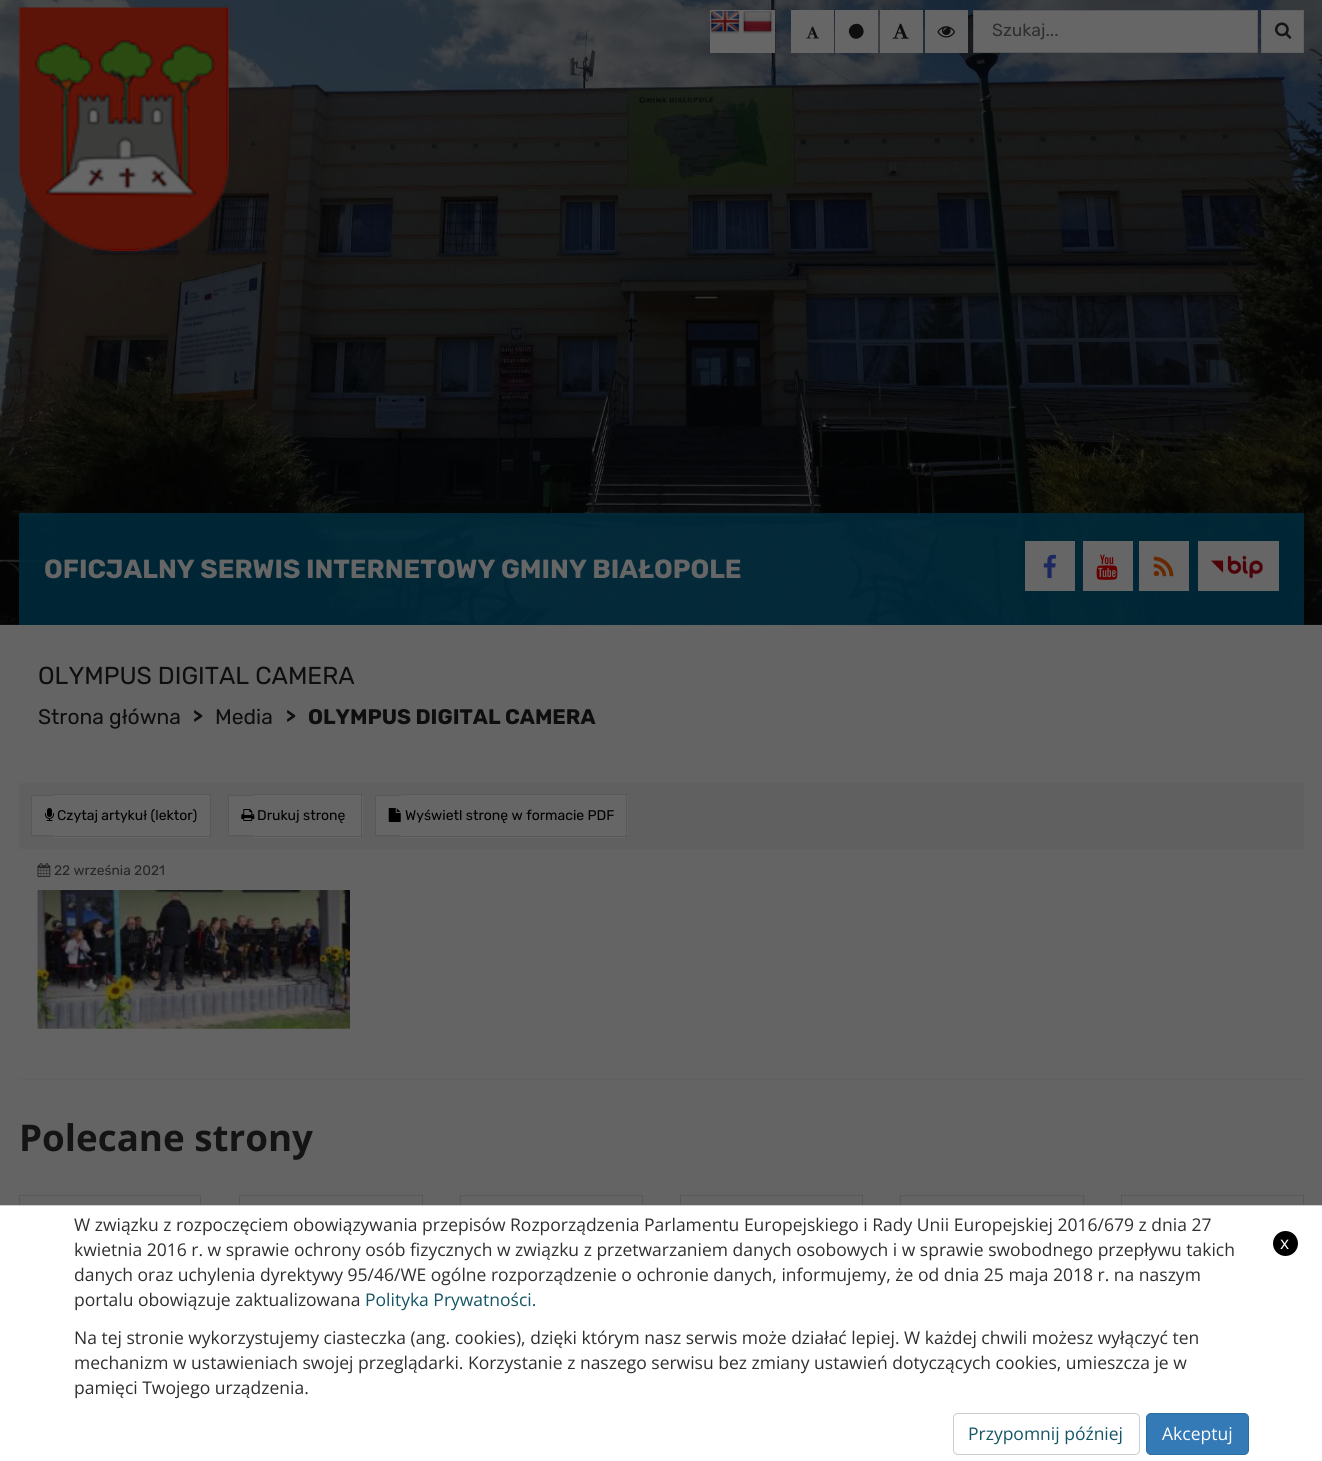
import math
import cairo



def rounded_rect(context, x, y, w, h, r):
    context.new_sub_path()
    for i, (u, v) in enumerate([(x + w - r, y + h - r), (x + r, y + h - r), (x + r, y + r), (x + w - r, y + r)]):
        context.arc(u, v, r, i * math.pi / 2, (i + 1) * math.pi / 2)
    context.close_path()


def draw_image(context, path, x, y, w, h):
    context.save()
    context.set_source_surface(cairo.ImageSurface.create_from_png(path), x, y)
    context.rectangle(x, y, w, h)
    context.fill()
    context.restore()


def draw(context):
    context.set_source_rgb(100 / 255, 100 / 255, 100 / 255)
    context.paint()
    draw_image(context, "images/1.png", 0, 0, 1322, 625)
    draw_image(context, "images/2.png", 18, 7, 211, 245)
    context.set_source_rgb(102 / 255, 102 / 255, 102 / 255)
    context.rectangle(710, 10, 65, 43)
    context.fill()
    draw_image(context, "images/3.png", 710, 11, 30, 23)
    draw_image(context, "images/4.png", 742, 11, 31, 23)
    context.rectangle(791, 10, 43, 43)
    context.fill()
    draw_image(context, "images/5.png", 806, 26, 13, 13)
    context.rectangle(835, 10, 43, 43)
    context.fill()
    context.set_source_rgb(14 / 255, 14 / 255, 14 / 255)
    context.new_path()
    context.move_to(862.5, 27.5)
    context.curve_to(867.5, 36, 854.5, 43.5, 850, 35)
    context.curve_to(845, 26.5, 858, 19, 862.5, 27.5)
    context.close_path()
    context.fill()
    context.set_source_rgb(102 / 255, 102 / 255, 102 / 255)
    context.rectangle(880, 10, 43, 43)
    context.fill()
    draw_image(context, "images/6.png", 892, 23, 17, 16)
    context.rectangle(925, 10, 43, 43)
    context.fill()
    draw_image(context, "images/7.png", 937, 26, 18, 12)
    context.rectangle(973.5, 10.5, 284, 42)
    context.fill_preserve()
    context.set_source_rgb(88 / 255, 88 / 255, 88 / 255)
    context.set_line_width(1)
    context.stroke()
    context.set_source_rgb(102 / 255, 102 / 255, 102 / 255)
    context.rectangle(1261.5, 10.5, 42, 42)
    context.fill_preserve()
    context.set_source_rgb(95 / 255, 95 / 255, 95 / 255)
    context.stroke()
    draw_image(context, "images/8.png", 1275, 22, 17, 17)
    context.set_source_rgba(1 / 255, 41 / 255, 58 / 255, 0.9)
    context.rectangle(19, 513, 1285, 112)
    context.fill()
    context.set_source_rgb(102 / 255, 102 / 255, 102 / 255)
    context.rectangle(1025, 541, 50, 50)
    context.fill()
    draw_image(context, "images/9.png", 1043, 554, 13, 25)
    context.rectangle(1083, 541, 50, 50)
    context.fill()
    draw_image(context, "images/10.png", 1096, 554, 22, 26)
    context.rectangle(1139, 541, 50, 50)
    context.fill()
    draw_image(context, "images/11.png", 1153, 556, 21, 21)
    context.rectangle(1198, 541, 81, 50)
    context.fill()
    draw_image(context, "images/12.png", 1211, 555, 52, 24)
    context.set_source_rgb(96 / 255, 96 / 255, 96 / 255)
    context.rectangle(19, 1079, 1285, 1)
    context.fill()
    context.rectangle(19, 783, 1285, 66)
    context.fill()
    context.set_source_rgb(102 / 255, 102 / 255, 102 / 255)
    context.rectangle(32, 796, 22, 39)
    context.fill()
    context.set_source_rgb(88 / 255, 88 / 255, 88 / 255)
    context.rectangle(31, 795, 23, 1)
    context.fill()
    context.rectangle(31, 835, 23, 1)
    context.fill()
    context.rectangle(31, 795, 1, 41)
    context.fill()
    context.set_source_rgb(102 / 255, 102 / 255, 102 / 255)
    context.rectangle(54, 795, 156, 43)
    context.fill()
    context.set_source_rgb(88 / 255, 88 / 255, 88 / 255)
    context.rectangle(54, 794, 157, 1)
    context.fill()
    context.rectangle(210, 794, 1, 44)
    context.fill()
    context.rectangle(54, 836, 157, 1)
    context.fill()
    draw_image(context, "images/13.png", 45, 808, 9, 13)
    context.set_source_rgb(102 / 255, 102 / 255, 102 / 255)
    context.rectangle(229, 796, 25, 39)
    context.fill()
    context.set_source_rgb(88 / 255, 88 / 255, 88 / 255)
    context.rectangle(228, 795, 26, 1)
    context.fill()
    context.rectangle(228, 835, 26, 1)
    context.fill()
    context.rectangle(228, 795, 1, 41)
    context.fill()
    context.set_source_rgb(102 / 255, 102 / 255, 102 / 255)
    context.rectangle(254, 795, 109, 43)
    context.fill()
    context.set_source_rgb(88 / 255, 88 / 255, 88 / 255)
    context.rectangle(254, 794, 109, 1)
    context.fill()
    context.rectangle(254, 836, 92, 1)
    context.fill()
    context.rectangle(361, 794, 1, 44)
    context.fill()
    context.rectangle(346, 836, 17, 1)
    context.fill()
    draw_image(context, "images/14.png", 241, 809, 14, 12)
    context.set_source_rgb(102 / 255, 102 / 255, 102 / 255)
    context.rectangle(376, 796, 25, 39)
    context.fill()
    context.set_source_rgb(88 / 255, 88 / 255, 88 / 255)
    context.rectangle(375, 795, 26, 1)
    context.fill()
    context.rectangle(375, 835, 26, 1)
    context.fill()
    context.rectangle(375, 795, 1, 41)
    context.fill()
    context.set_source_rgb(102 / 255, 102 / 255, 102 / 255)
    context.rectangle(401, 795, 227, 43)
    context.fill()
    context.set_source_rgb(88 / 255, 88 / 255, 88 / 255)
    context.rectangle(401, 794, 227, 1)
    context.fill()
    context.rectangle(626, 794, 1, 44)
    context.fill()
    context.rectangle(401, 836, 227, 1)
    context.fill()
    draw_image(context, "images/15.png", 388, 808, 13, 14)
    draw_image(context, "images/16.png", 37, 863, 14, 14)
    draw_image(context, "images/17.png", 37, 890, 313, 139)
    context.rectangle(19.5, 1195.5, 181, 88)
    context.stroke()
    context.rectangle(239.5, 1195.5, 183, 88)
    context.stroke()
    context.rectangle(460.5, 1195.5, 182, 88)
    context.stroke()
    context.rectangle(680.5, 1195.5, 182, 88)
    context.stroke()
    context.rectangle(900.5, 1195.5, 183, 88)
    context.stroke()
    context.rectangle(1121.5, 1195.5, 182, 88)
    context.stroke()
    context.set_source_rgb(1, 1, 1)
    context.rectangle(0, 1206, 1322, 255)
    context.fill()
    context.set_source_rgb(204 / 255, 204 / 255, 204 / 255)
    context.rectangle(0, 1205, 1322, 1)
    context.fill()
    rounded_rect(context, 953.5, 1413.5, 186, 41, 4.5)
    context.stroke()
    context.set_source_rgb(51 / 255, 122 / 255, 183 / 255)
    rounded_rect(context, 1146.5, 1413.5, 102, 41, 4.5)
    context.fill_preserve()
    context.set_source_rgb(46 / 255, 109 / 255, 164 / 255)
    context.stroke()
    context.set_source_rgb(0, 0, 0)
    context.arc(1285.5, 1243.5, 12.5, 0, 2 * math.pi)
    context.fill()
    context.select_font_face("Rubik")
    context.set_font_size(17.5)
    context.set_source_rgb(47 / 255, 47 / 255, 47 / 255)
    context.move_to(992, 36)
    context.show_text("Szukaj...")
    context.select_font_face("Rubik", cairo.FontSlant.NORMAL, cairo.FontWeight.BOLD)
    context.set_font_size(26.25)
    context.set_source_rgb(102 / 255, 102 / 255, 102 / 255)
    context.move_to(44, 578)
    context.show_text("OFICJALNY SERWIS INTERNETOWY GMINY BIAŁOPOLE")
    context.select_font_face("Rubik")
    context.set_font_size(24.5)
    context.set_source_rgb(14 / 255, 14 / 255, 14 / 255)
    context.move_to(38, 684)
    context.show_text("OLYMPUS DIGITAL CAMERA")
    context.set_font_size(21.1)
    context.move_to(38, 724)
    context.show_text("Strona główna")
    context.select_font_face("Rubik", cairo.FontSlant.NORMAL, cairo.FontWeight.BOLD)
    context.set_font_size(19)
    context.move_to(193, 722)
    context.show_text(">")
    context.select_font_face("Rubik")
    context.set_font_size(21.1)
    context.move_to(215, 724)
    context.show_text("Media")
    context.select_font_face("Rubik", cairo.FontSlant.NORMAL, cairo.FontWeight.BOLD)
    context.set_font_size(19)
    context.move_to(286, 722)
    context.show_text(">")
    context.set_font_size(21.1)
    context.move_to(308, 724)
    context.show_text("OLYMPUS DIGITAL CAMERA")
    context.select_font_face("Rubik")
    context.set_font_size(14)
    context.set_source_rgb(0, 0, 0)
    context.move_to(57, 820)
    context.show_text("Czytaj artykuł (lektor)")
    context.move_to(257, 820)
    context.show_text("Drukuj stronę")
    context.move_to(405, 820)
    context.show_text("Wyświetl stronę w formacie PDF")
    context.set_font_size(13.75)
    context.set_source_rgb(38 / 255, 38 / 255, 38 / 255)
    context.move_to(54, 875)
    context.show_text("22 września 2021")
    context.select_font_face("Open Sans", cairo.FontSlant.NORMAL, cairo.FontWeight.BOLD)
    context.set_font_size(36.75)
    context.set_source_rgb(20 / 255, 20 / 255, 20 / 255)
    context.move_to(19, 1151)
    context.show_text("Polecane strony")
    context.select_font_face("Open Sans")
    context.set_font_size(17.5)
    context.set_source_rgb(47 / 255, 47 / 255, 47 / 255)
    context.move_to(74, 1231)
    context.show_text("W związku z rozpoczęciem obowiązywania przepisów Rozporządzenia Parlamentu Europejskiego i Rady Unii Europejskiej 2016/679 z dnia 27")
    context.move_to(74, 1256)
    context.show_text("kwietnia 2016 r. w sprawie ochrony osób fizycznych w związku z przetwarzaniem danych osobowych i w sprawie swobodnego przepływu takich")
    context.move_to(74, 1281)
    context.show_text("danych oraz uchylenia dyrektywy 95/46/WE ogólne rozporządzenie o ochronie danych, informujemy, że od dnia 25 maja 2018 r. na naszym")
    context.move_to(74, 1306)
    context.show_text("portalu obowiązuje zaktualizowana")
    context.set_source_rgb(21 / 255, 86 / 255, 101 / 255)
    context.move_to(365, 1306)
    context.show_text("Polityka Prywatności.")
    context.set_source_rgb(47 / 255, 47 / 255, 47 / 255)
    context.move_to(74, 1344)
    context.show_text("Na tej stronie wykorzystujemy ciasteczka (ang. cookies), dzięki którym nasz serwis może działać lepiej. W każdej chwili możesz wyłączyć ten")
    context.move_to(74, 1369)
    context.show_text("mechanizm w ustawieniach swojej przeglądarki. Korzystanie z naszego serwisu bez zmiany ustawień dotyczących cookies, umieszcza je w")
    context.move_to(74, 1394)
    context.show_text("pamięci Twojego urządzenia.")
    context.set_source_rgb(21 / 255, 86 / 255, 101 / 255)
    context.move_to(968, 1440)
    context.show_text("Przypomnij później")
    context.set_source_rgb(1, 1, 1)
    context.move_to(1162, 1440)
    context.show_text("Akceptuj")
    context.move_to(1280, 1249)
    context.show_text("x")


surface = cairo.ImageSurface(cairo.Format.RGB24, 1322, 1461)
context = cairo.Context(surface)
options = cairo.FontOptions()
options.set_hint_metrics(cairo.HintMetrics.OFF)
options.set_hint_style(cairo.HintStyle.NONE)
context.set_font_options(options)
context.set_miter_limit(4)
draw(context)
surface.write_to_png("out.png")
